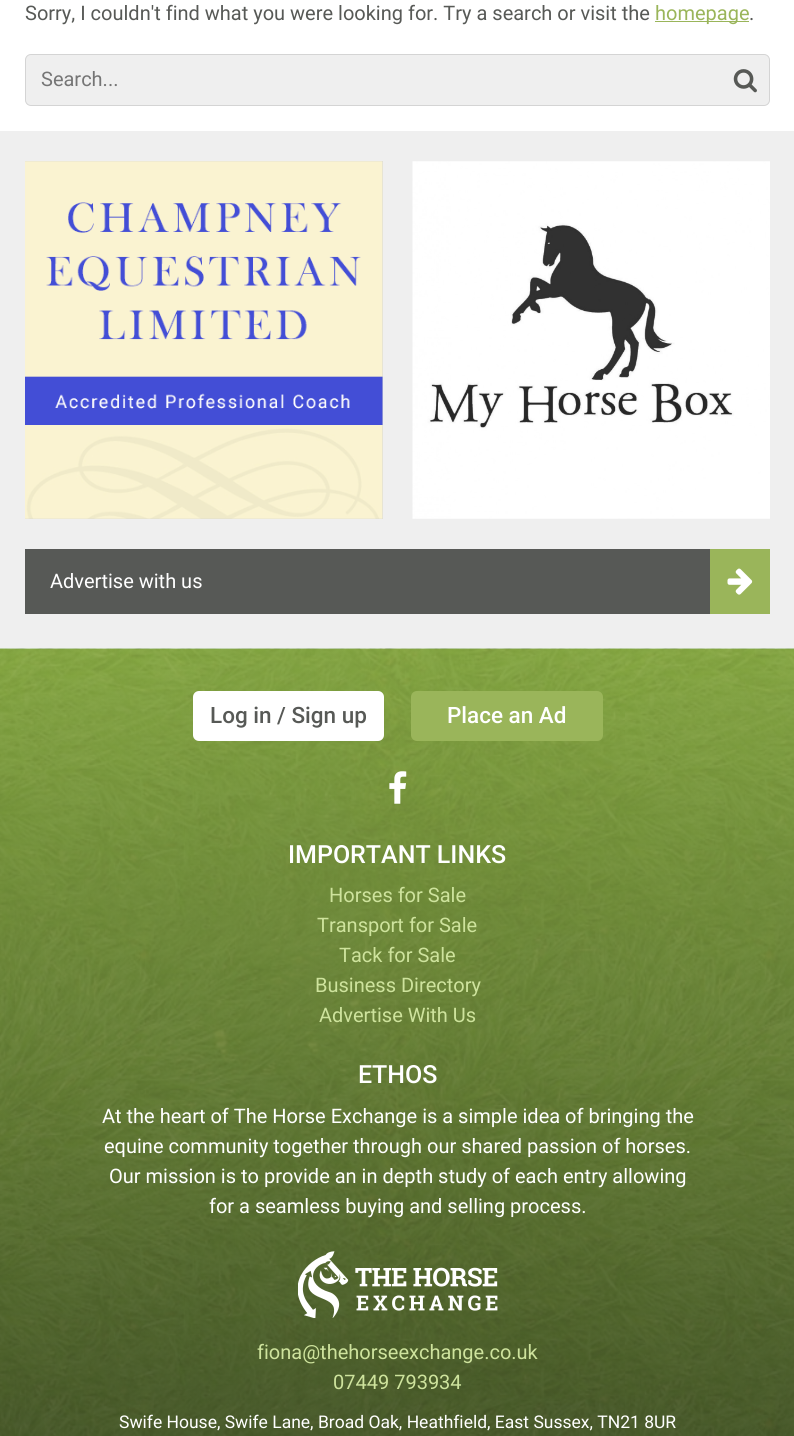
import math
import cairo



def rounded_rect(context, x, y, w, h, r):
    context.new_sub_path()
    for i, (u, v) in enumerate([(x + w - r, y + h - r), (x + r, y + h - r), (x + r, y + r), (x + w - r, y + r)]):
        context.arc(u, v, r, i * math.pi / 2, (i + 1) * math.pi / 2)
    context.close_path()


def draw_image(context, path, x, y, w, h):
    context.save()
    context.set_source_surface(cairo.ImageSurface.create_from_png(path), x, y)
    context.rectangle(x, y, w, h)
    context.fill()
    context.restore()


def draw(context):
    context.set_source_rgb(239 / 255, 239 / 255, 239 / 255)
    context.paint()
    context.set_source_rgb(1, 1, 1)
    context.rectangle(0, 0, 794, 131)
    context.fill()
    context.set_source_rgb(154 / 255, 181 / 255, 90 / 255)
    context.rectangle(655, 21, 94, 1)
    context.fill()
    context.set_source_rgb(239 / 255, 239 / 255, 239 / 255)
    rounded_rect(context, 25.5, 54.5, 744, 51, 5.5)
    context.fill_preserve()
    context.set_source_rgb(212 / 255, 212 / 255, 212 / 255)
    context.set_line_width(1)
    context.stroke()
    draw_image(context, "images/1.png", 733, 69, 24, 24)
    context.rectangle(25, 161, 358, 358)
    context.fill()
    draw_image(context, "images/2.png", 25, 161, 358, 358)
    draw_image(context, "images/3.png", 412, 161, 358, 358)
    context.set_source_rgb(87 / 255, 89 / 255, 86 / 255)
    context.rectangle(25, 549, 685, 65)
    context.fill()
    context.set_source_rgb(154 / 255, 181 / 255, 90 / 255)
    context.rectangle(710, 549, 60, 65)
    context.fill()
    draw_image(context, "images/4.png", 727, 568, 26, 27)
    draw_image(context, "images/5.png", 0, 648, 794, 788)
    context.set_source_rgb(1, 1, 1)
    rounded_rect(context, 193, 691, 191, 50, 6)
    context.fill()
    context.set_source_rgb(154 / 255, 181 / 255, 90 / 255)
    rounded_rect(context, 411, 691, 192, 50, 6)
    context.fill()
    draw_image(context, "images/6.png", 389, 771, 18, 33)
    draw_image(context, "images/7.png", 298, 1251, 200, 67)
    context.select_font_face("Roboto")
    context.set_font_size(20)
    context.set_source_rgb(87 / 255, 89 / 255, 86 / 255)
    context.move_to(25, 20)
    context.show_text("Sorry, I couldn't find what you were looking for. Try a search or visit the")
    context.set_source_rgb(154 / 255, 181 / 255, 90 / 255)
    context.move_to(655, 20)
    context.show_text("homepage")
    context.set_source_rgb(87 / 255, 89 / 255, 86 / 255)
    context.move_to(749, 20)
    context.show_text(".")
    context.set_source_rgb(117 / 255, 117 / 255, 117 / 255)
    context.move_to(41, 86)
    context.show_text("Search...")
    context.set_source_rgb(1, 1, 1)
    context.move_to(50, 588)
    context.show_text("Advertise with us")
    context.select_font_face("Roboto Medium")
    context.set_font_size(22.5)
    context.set_source_rgb(87 / 255, 89 / 255, 86 / 255)
    context.move_to(210, 723)
    context.show_text("Log in / Sign up")
    context.set_source_rgb(1, 1, 1)
    context.move_to(447, 723)
    context.show_text("Place an Ad")
    context.set_font_size(25)
    context.move_to(288, 863)
    context.show_text("IMPORTANT LINKS")
    context.select_font_face("Roboto")
    context.set_font_size(20)
    context.set_source_rgb(206 / 255, 227 / 255, 157 / 255)
    context.move_to(329, 902)
    context.show_text("Horses for Sale")
    context.move_to(317, 932)
    context.show_text("Transport for Sale")
    context.move_to(339, 962)
    context.show_text("Tack for Sale")
    context.move_to(315, 992)
    context.show_text("Business Directory")
    context.move_to(319, 1022)
    context.show_text("Advertise With Us")
    context.select_font_face("Roboto Medium")
    context.set_font_size(25)
    context.set_source_rgb(1, 1, 1)
    context.move_to(358, 1083)
    context.show_text("ETHOS")
    context.select_font_face("Roboto")
    context.set_font_size(20)
    context.move_to(102, 1123)
    context.show_text("At the heart of The Horse Exchange is a simple idea of bringing the")
    context.move_to(104, 1153)
    context.show_text("equine community together through our shared passion of horses.")
    context.move_to(109, 1183)
    context.show_text("Our mission is to provide an in depth study of each entry allowing")
    context.move_to(209, 1213)
    context.show_text("for a seamless buying and selling process.")
    context.set_source_rgb(206 / 255, 227 / 255, 157 / 255)
    context.move_to(257, 1359)
    context.show_text("fiona@thehorseexchange.co.uk")
    context.move_to(333, 1389)
    context.show_text("07449 793934")
    context.set_font_size(17.5)
    context.set_source_rgb(1, 1, 1)
    context.move_to(119, 1428)
    context.show_text("Swife House, Swife Lane, Broad Oak, Heathfield, East Sussex, TN21 8UR")


surface = cairo.ImageSurface(cairo.Format.RGB24, 794, 1436)
context = cairo.Context(surface)
options = cairo.FontOptions()
options.set_hint_metrics(cairo.HintMetrics.OFF)
options.set_hint_style(cairo.HintStyle.NONE)
context.set_font_options(options)
context.set_miter_limit(4)
draw(context)
surface.write_to_png("out.png")
